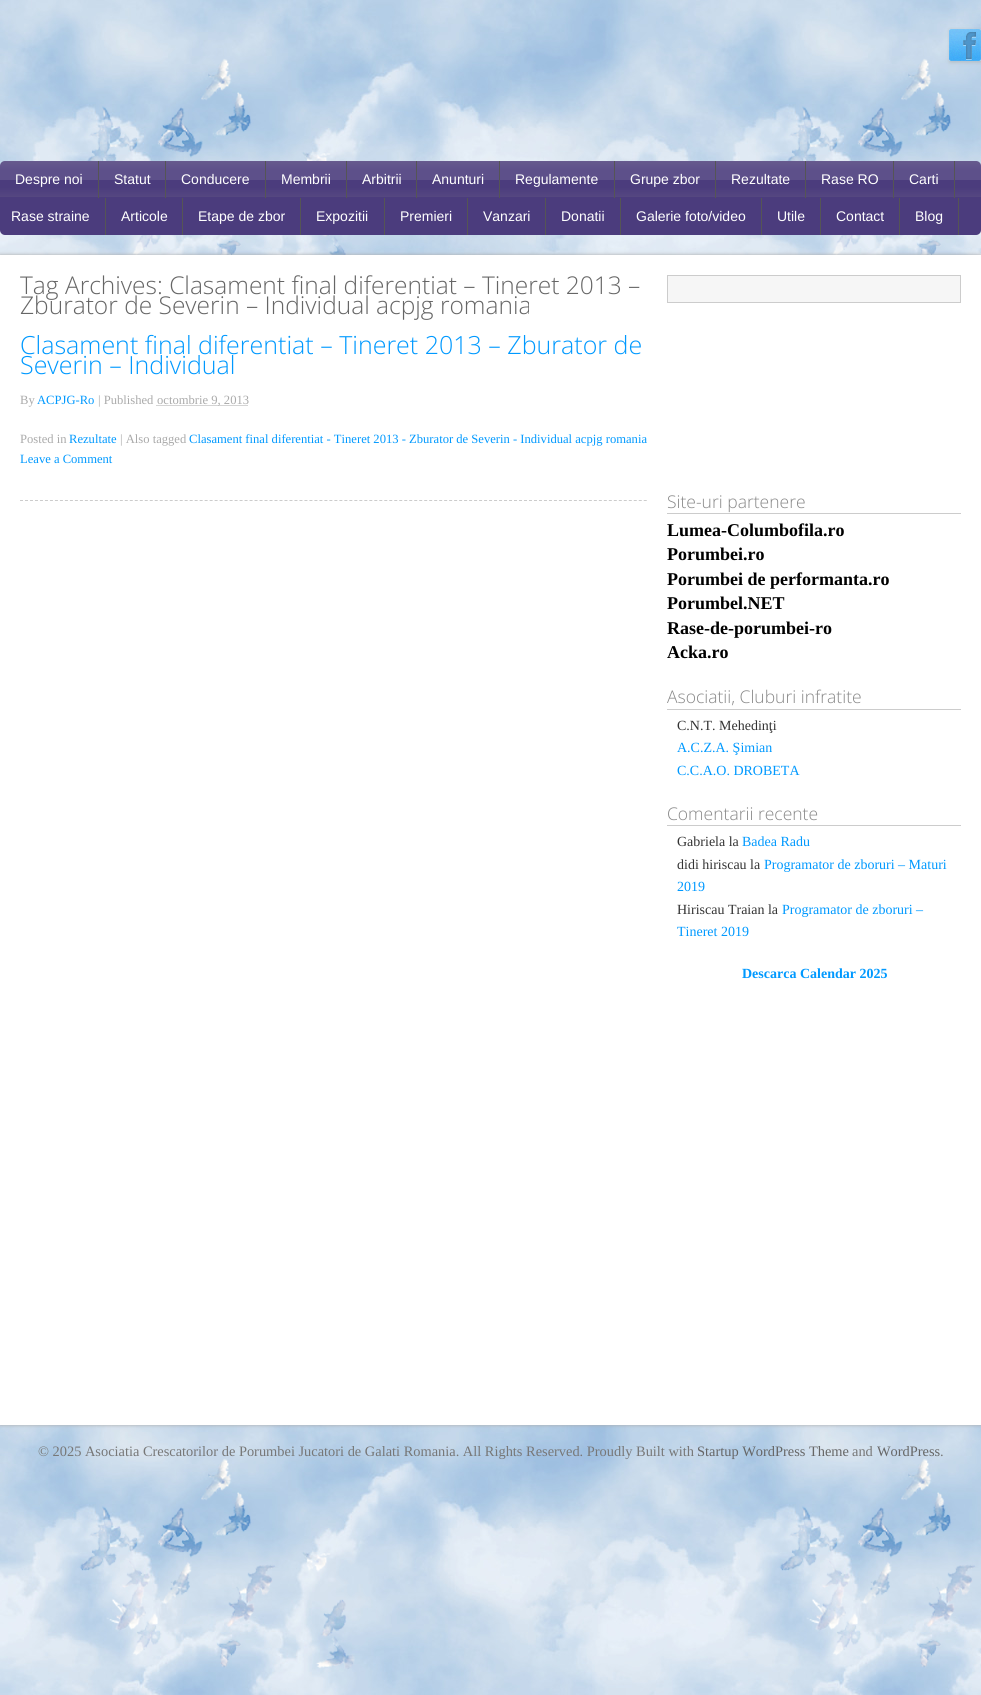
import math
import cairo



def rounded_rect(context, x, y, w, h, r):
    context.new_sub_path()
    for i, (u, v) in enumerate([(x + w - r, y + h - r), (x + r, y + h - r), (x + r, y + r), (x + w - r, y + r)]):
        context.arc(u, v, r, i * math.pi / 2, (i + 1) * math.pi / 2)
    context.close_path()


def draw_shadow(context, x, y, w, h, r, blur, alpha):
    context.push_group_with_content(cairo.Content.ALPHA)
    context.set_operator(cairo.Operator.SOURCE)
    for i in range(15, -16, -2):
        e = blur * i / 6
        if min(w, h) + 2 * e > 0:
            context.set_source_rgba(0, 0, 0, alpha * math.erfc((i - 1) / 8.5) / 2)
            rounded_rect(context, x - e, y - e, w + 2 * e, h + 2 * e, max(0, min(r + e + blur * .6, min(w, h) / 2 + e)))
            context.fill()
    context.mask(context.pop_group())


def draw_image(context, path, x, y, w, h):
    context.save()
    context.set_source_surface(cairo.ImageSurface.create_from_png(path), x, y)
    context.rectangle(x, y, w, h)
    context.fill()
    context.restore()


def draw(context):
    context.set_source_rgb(1, 1, 1)
    context.paint()
    draw_image(context, "images/1.png", 0, 0, 981, 1695)
    context.save()
    context.set_fill_rule(cairo.FillRule.EVEN_ODD)
    context.new_path()
    context.move_to(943, 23)
    context.line_to(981, 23)
    context.line_to(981, 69)
    context.line_to(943, 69)
    context.close_path()
    context.move_to(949, 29)
    context.line_to(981, 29)
    context.line_to(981, 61)
    context.line_to(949, 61)
    context.close_path()
    context.clip()
    context.set_source_rgb(170 / 255, 170 / 255, 170 / 255)
    draw_shadow(context, 950, 30, 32, 32, 0, 2, 0.7)
    context.restore()
    draw_image(context, "images/2.png", 949, 29, 32, 32)
    context.set_source_rgb(75 / 255, 60 / 255, 125 / 255)
    rounded_rect(context, 0, 161, 981, 74, 5)
    context.fill()
    draw_image(context, "images/3.png", 0, 161, 981, 36)
    context.set_source_rgb(85 / 255, 85 / 255, 85 / 255)
    context.rectangle(98, 161, 1, 37)
    context.fill()
    context.rectangle(165, 161, 1, 37)
    context.fill()
    context.rectangle(265, 161, 1, 37)
    context.fill()
    context.rectangle(346, 161, 1, 37)
    context.fill()
    context.rectangle(416, 161, 1, 37)
    context.fill()
    context.rectangle(499, 161, 1, 37)
    context.fill()
    context.rectangle(614, 161, 1, 37)
    context.fill()
    context.rectangle(715, 161, 1, 37)
    context.fill()
    context.rectangle(805, 161, 1, 37)
    context.fill()
    context.rectangle(893, 161, 1, 37)
    context.fill()
    context.rectangle(954, 161, 1, 37)
    context.fill()
    context.rectangle(105, 198, 1, 37)
    context.fill()
    context.rectangle(182, 198, 1, 37)
    context.fill()
    context.rectangle(300, 198, 1, 37)
    context.fill()
    context.rectangle(384, 198, 1, 37)
    context.fill()
    context.rectangle(467, 198, 1, 37)
    context.fill()
    context.rectangle(545, 198, 1, 37)
    context.fill()
    context.rectangle(620, 198, 1, 37)
    context.fill()
    context.rectangle(761, 198, 1, 37)
    context.fill()
    context.rectangle(820, 198, 1, 37)
    context.fill()
    context.rectangle(899, 198, 1, 37)
    context.fill()
    context.rectangle(958, 198, 1, 37)
    context.fill()
    context.set_source_rgb(170 / 255, 170 / 255, 170 / 255)
    draw_shadow(context, 0, 255, 981, 1170, 0, 2, 1)
    context.set_source_rgb(1, 1, 1)
    context.rectangle(0, 255, 981, 1170)
    context.fill()
    context.new_path()
    context.move_to(20, 500.5)
    context.line_to(647, 500.5)
    context.set_source_rgb(204 / 255, 204 / 255, 204 / 255)
    context.set_line_width(1)
    context.set_dash([3, 1.99])
    context.stroke()
    context.new_path()
    context.move_to(156.5, 405.5)
    context.line_to(248.5, 405.5)
    context.set_source_rgb(170 / 255, 170 / 255, 170 / 255)
    context.set_dash([1, 1])
    context.stroke()
    context.set_source_rgb(246 / 255, 246 / 255, 246 / 255)
    context.rectangle(667.5, 275.5, 293, 27)
    context.fill_preserve()
    context.set_source_rgb(204 / 255, 204 / 255, 204 / 255)
    context.set_dash([])
    context.stroke()
    context.rectangle(667, 513, 294, 1)
    context.fill()
    context.rectangle(667, 709, 294, 1)
    context.fill()
    context.rectangle(667, 825, 294, 1)
    context.fill()
    context.select_font_face("Liberation Sans")
    context.set_font_size(14)
    context.set_source_rgb(1, 1, 1)
    context.move_to(15, 184)
    context.show_text("Despre noi")
    context.move_to(114, 184)
    context.show_text("Statut")
    context.move_to(181, 184)
    context.show_text("Conducere")
    context.move_to(281, 184)
    context.show_text("Membrii")
    context.move_to(362, 184)
    context.show_text("Arbitrii")
    context.move_to(432, 184)
    context.show_text("Anunturi")
    context.move_to(515, 184)
    context.show_text("Regulamente")
    context.move_to(630, 184)
    context.show_text("Grupe zbor")
    context.move_to(731, 184)
    context.show_text("Rezultate")
    context.move_to(821, 184)
    context.show_text("Rase RO")
    context.move_to(909, 184)
    context.show_text("Carti")
    context.move_to(11, 221)
    context.show_text("Rase straine")
    context.move_to(121, 221)
    context.show_text("Articole")
    context.move_to(198, 221)
    context.show_text("Etape de zbor")
    context.move_to(316, 221)
    context.show_text("Expozitii")
    context.move_to(400, 221)
    context.show_text("Premieri")
    context.move_to(483, 221)
    context.show_text("Vanzari")
    context.move_to(561, 221)
    context.show_text("Donatii")
    context.move_to(636, 221)
    context.show_text("Galerie foto/video")
    context.move_to(777, 221)
    context.show_text("Utile")
    context.move_to(836, 221)
    context.show_text("Contact")
    context.move_to(915, 221)
    context.show_text("Blog")
    context.select_font_face("Open Sans Light")
    context.set_font_size(24.5)
    context.set_source_rgb(102 / 255, 102 / 255, 102 / 255)
    context.move_to(20, 294)
    context.show_text("Tag Archives: Clasament final diferentiat – Tineret 2013 –")
    context.move_to(20, 314)
    context.show_text("Zburator de Severin – Individual acpjg romania")
    context.set_font_size(25)
    context.set_source_rgb(0, 153 / 255, 1)
    context.move_to(20, 354)
    context.show_text("Clasament final diferentiat – Tineret 2013 – Zburator de")
    context.move_to(20, 374)
    context.show_text("Severin – Individual")
    context.select_font_face("Liberation Serif")
    context.set_font_size(12.6)
    context.set_source_rgb(170 / 255, 170 / 255, 170 / 255)
    context.move_to(20, 404)
    context.show_text("By")
    context.set_source_rgb(0, 153 / 255, 1)
    context.move_to(37, 404)
    context.show_text("ACPJG-Ro")
    context.set_source_rgb(170 / 255, 170 / 255, 170 / 255)
    context.move_to(98, 404)
    context.show_text("| Published")
    context.move_to(157, 404)
    context.show_text("octombrie 9, 2013")
    context.move_to(20, 443)
    context.show_text("Posted in")
    context.set_source_rgb(0, 153 / 255, 1)
    context.move_to(69, 443)
    context.show_text("Rezultate")
    context.set_source_rgb(170 / 255, 170 / 255, 170 / 255)
    context.move_to(120, 443)
    context.show_text("| Also tagged")
    context.set_source_rgb(0, 153 / 255, 1)
    context.move_to(189, 443)
    context.show_text("Clasament final diferentiat - Tineret 2013 - Zburator de Severin - Individual acpjg romania")
    context.move_to(20, 463)
    context.show_text("Leave a Comment")
    context.select_font_face("Open Sans Light")
    context.set_font_size(17.5)
    context.set_source_rgb(136 / 255, 136 / 255, 136 / 255)
    context.move_to(667, 508)
    context.show_text("Site-uri partenere")
    context.select_font_face("Liberation Serif", cairo.FontSlant.NORMAL, cairo.FontWeight.BOLD)
    context.set_font_size(18)
    context.set_source_rgb(0, 0, 0)
    context.move_to(667, 536)
    context.show_text("Lumea-Columbofila.ro")
    context.move_to(667, 560)
    context.show_text("Porumbei.ro")
    context.move_to(667, 585)
    context.show_text("Porumbei de performanta.ro")
    context.move_to(667, 609)
    context.show_text("Porumbel.NET")
    context.move_to(667, 634)
    context.show_text("Rase-de-porumbei-ro")
    context.move_to(667, 658)
    context.show_text("Acka.ro")
    context.select_font_face("Open Sans Light")
    context.set_font_size(17.5)
    context.set_source_rgb(136 / 255, 136 / 255, 136 / 255)
    context.move_to(667, 703)
    context.show_text("Asociatii, Cluburi infratite")
    context.select_font_face("Liberation Serif")
    context.set_font_size(14)
    context.set_source_rgb(51 / 255, 51 / 255, 51 / 255)
    context.move_to(677, 730)
    context.show_text("C.N.T. Mehedinţi")
    context.set_source_rgb(0, 153 / 255, 1)
    context.move_to(677, 752)
    context.show_text("A.C.Z.A. Şimian")
    context.move_to(677, 775)
    context.show_text("C.C.A.O. DROBETA")
    context.select_font_face("Open Sans Light")
    context.set_font_size(17.5)
    context.set_source_rgb(136 / 255, 136 / 255, 136 / 255)
    context.move_to(667, 820)
    context.show_text("Comentarii recente")
    context.select_font_face("Liberation Serif")
    context.set_font_size(14)
    context.set_source_rgb(51 / 255, 51 / 255, 51 / 255)
    context.move_to(677, 846)
    context.show_text("Gabriela la")
    context.set_source_rgb(0, 153 / 255, 1)
    context.move_to(742, 846)
    context.show_text("Badea Radu")
    context.set_source_rgb(51 / 255, 51 / 255, 51 / 255)
    context.move_to(677, 869)
    context.show_text("didi hiriscau la")
    context.set_source_rgb(0, 153 / 255, 1)
    context.move_to(764, 869)
    context.show_text("Programator de zboruri – Maturi")
    context.move_to(677, 891)
    context.show_text("2019")
    context.set_source_rgb(51 / 255, 51 / 255, 51 / 255)
    context.move_to(677, 914)
    context.show_text("Hiriscau Traian la")
    context.set_source_rgb(0, 153 / 255, 1)
    context.move_to(782, 914)
    context.show_text("Programator de zboruri –")
    context.move_to(677, 936)
    context.show_text("Tineret 2019")
    context.select_font_face("Liberation Serif", cairo.FontSlant.NORMAL, cairo.FontWeight.BOLD)
    context.move_to(742, 978)
    context.show_text("Descarca Calendar 2025")
    context.select_font_face("Liberation Serif")
    context.set_font_size(14.4)
    context.set_source_rgb(119 / 255, 119 / 255, 119 / 255)
    context.move_to(38, 1456)
    context.show_text("© 2025 Asociatia Crescatorilor de Porumbei Jucatori de Galati Romania. All Rights Reserved. Proudly Built with")
    context.set_source_rgb(102 / 255, 102 / 255, 102 / 255)
    context.move_to(697, 1456)
    context.show_text("Startup WordPress Theme")
    context.set_source_rgb(119 / 255, 119 / 255, 119 / 255)
    context.move_to(852, 1456)
    context.show_text("and")
    context.set_source_rgb(102 / 255, 102 / 255, 102 / 255)
    context.move_to(877, 1456)
    context.show_text("WordPress")
    context.set_source_rgb(119 / 255, 119 / 255, 119 / 255)
    context.move_to(940, 1456)
    context.show_text(".")


surface = cairo.ImageSurface(cairo.Format.RGB24, 981, 1695)
context = cairo.Context(surface)
options = cairo.FontOptions()
options.set_hint_metrics(cairo.HintMetrics.OFF)
options.set_hint_style(cairo.HintStyle.NONE)
context.set_font_options(options)
context.set_miter_limit(4)
draw(context)
surface.write_to_png("out.png")
